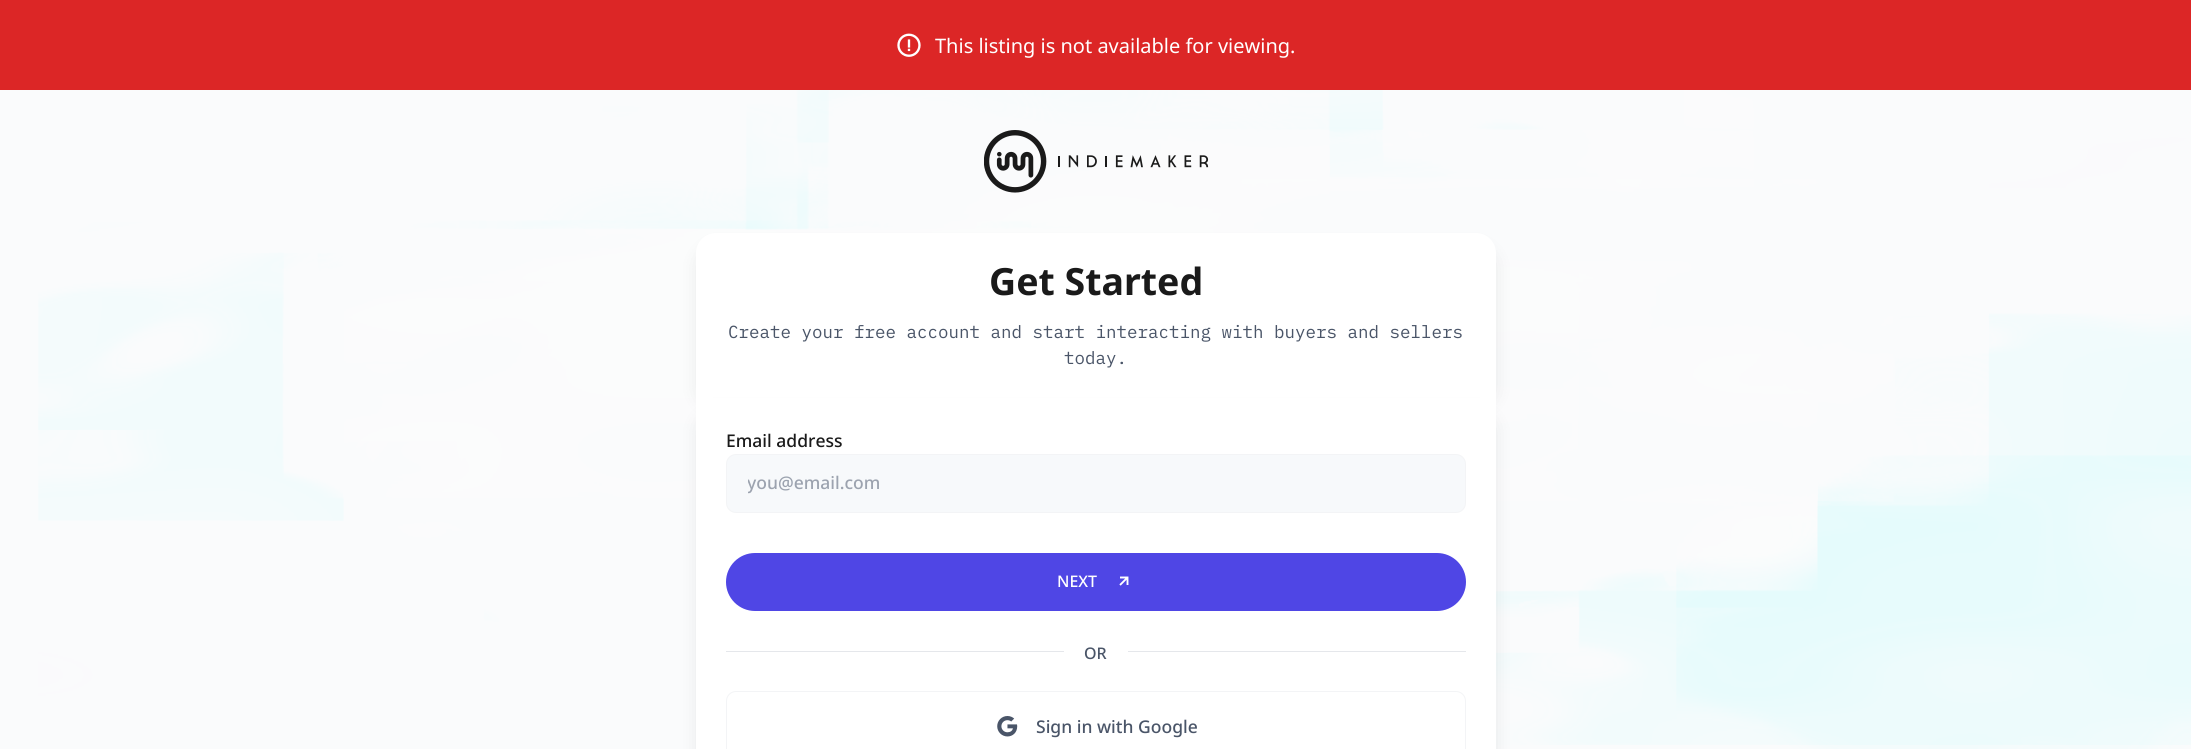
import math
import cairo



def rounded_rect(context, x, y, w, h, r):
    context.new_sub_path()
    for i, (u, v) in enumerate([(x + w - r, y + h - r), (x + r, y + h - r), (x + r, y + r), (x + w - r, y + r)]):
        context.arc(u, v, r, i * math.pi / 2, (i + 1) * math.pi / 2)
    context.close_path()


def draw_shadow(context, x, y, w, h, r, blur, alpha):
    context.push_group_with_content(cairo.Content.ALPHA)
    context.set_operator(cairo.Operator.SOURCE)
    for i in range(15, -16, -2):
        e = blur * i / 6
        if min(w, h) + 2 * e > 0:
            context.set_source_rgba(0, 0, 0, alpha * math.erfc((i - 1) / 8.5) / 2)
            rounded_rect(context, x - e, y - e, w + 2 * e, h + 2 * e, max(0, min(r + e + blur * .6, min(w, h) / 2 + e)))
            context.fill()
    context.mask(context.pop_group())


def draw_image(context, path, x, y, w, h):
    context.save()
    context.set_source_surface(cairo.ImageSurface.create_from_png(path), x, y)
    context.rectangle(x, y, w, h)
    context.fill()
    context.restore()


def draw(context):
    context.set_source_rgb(250 / 255, 251 / 255, 252 / 255)
    context.paint()
    context.set_source_rgb(220 / 255, 38 / 255, 38 / 255)
    context.rectangle(0, 0, 2191, 90)
    context.fill()
    draw_image(context, "images/1.png", 897, 33, 24, 24)
    draw_image(context, "images/2.png", 38, 90, 2153, 659)
    draw_image(context, "images/3.png", 984, 130, 225, 63)
    context.set_source_rgb(0, 0, 0)
    draw_shadow(context, 700, 249, 793, 157, 16, 9.5, 0.1)
    context.set_source_rgb(1, 1, 1)
    context.new_path()
    context.move_to(716, 233)
    context.line_to(1476, 233)
    context.curve_to(1487, 233, 1496, 242, 1496, 253)
    context.line_to(1496, 398)
    context.line_to(696, 398)
    context.line_to(696, 253)
    context.curve_to(696, 242, 705, 233, 716, 233)
    context.close_path()
    context.fill()
    context.set_source_rgb(0, 0, 0)
    draw_shadow(context, 700, 414, 793, 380, 16, 9.5, 0.1)
    context.set_source_rgb(1, 1, 1)
    context.rectangle(696, 398, 800, 351)
    context.fill()
    context.set_source_rgb(247 / 255, 249 / 255, 251 / 255)
    rounded_rect(context, 726.5, 454.5, 739, 58, 9.5)
    context.fill_preserve()
    context.set_source_rgb(243 / 255, 244 / 255, 246 / 255)
    context.set_line_width(1)
    context.stroke()
    context.set_source_rgb(79 / 255, 70 / 255, 229 / 255)
    rounded_rect(context, 726, 553, 740, 58, 29)
    context.fill()
    draw_image(context, "images/4.png", 1119, 576, 10, 10)
    context.set_source_rgb(229 / 255, 231 / 255, 235 / 255)
    context.rectangle(726, 651, 740, 1)
    context.fill()
    context.set_source_rgb(1, 1, 1)
    context.rectangle(1064, 651, 64, 1)
    context.fill()
    rounded_rect(context, 726.5, 691.5, 739, 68, 9.5)
    context.set_source_rgb(243 / 255, 244 / 255, 246 / 255)
    context.stroke()
    draw_image(context, "images/5.png", 997, 716, 21, 21)
    context.select_font_face("Noto Sans")
    context.set_font_size(20)
    context.set_source_rgb(1, 1, 1)
    context.move_to(935, 53)
    context.show_text("This listing is not available for viewing.")
    context.select_font_face("Noto Sans", cairo.FontSlant.NORMAL, cairo.FontWeight.BOLD)
    context.set_font_size(37.5)
    context.set_source_rgb(26 / 255, 26 / 255, 26 / 255)
    context.move_to(989, 295)
    context.show_text("Get Started")
    context.select_font_face("IBM Plex Mono")
    context.set_font_size(17.5)
    context.set_source_rgb(74 / 255, 85 / 255, 104 / 255)
    context.move_to(728, 338)
    context.show_text("Create your free account and start interacting with buyers and sellers")
    context.move_to(1064, 364)
    context.show_text("today.")
    context.select_font_face("Noto Sans Medium")
    context.set_source_rgb(26 / 255, 26 / 255, 26 / 255)
    context.move_to(726, 447)
    context.show_text("Email address")
    context.save()
    context.rectangle(748, 471, 697, 24)
    context.clip()
    context.set_source_rgb(156 / 255, 163 / 255, 175 / 255)
    context.move_to(747, 489)
    context.show_text("you@email.com")
    context.restore()
    context.set_font_size(16)
    context.set_source_rgb(1, 1, 1)
    context.move_to(1057, 587)
    context.show_text("NEXT")
    context.set_source_rgb(74 / 255, 85 / 255, 104 / 255)
    context.move_to(1084, 659)
    context.show_text("OR")
    context.set_font_size(17.5)
    context.move_to(1036, 733)
    context.show_text("Sign in with Google")


surface = cairo.ImageSurface(cairo.Format.RGB24, 2191, 749)
context = cairo.Context(surface)
options = cairo.FontOptions()
options.set_hint_metrics(cairo.HintMetrics.OFF)
options.set_hint_style(cairo.HintStyle.NONE)
context.set_font_options(options)
context.set_miter_limit(4)
draw(context)
surface.write_to_png("out.png")
